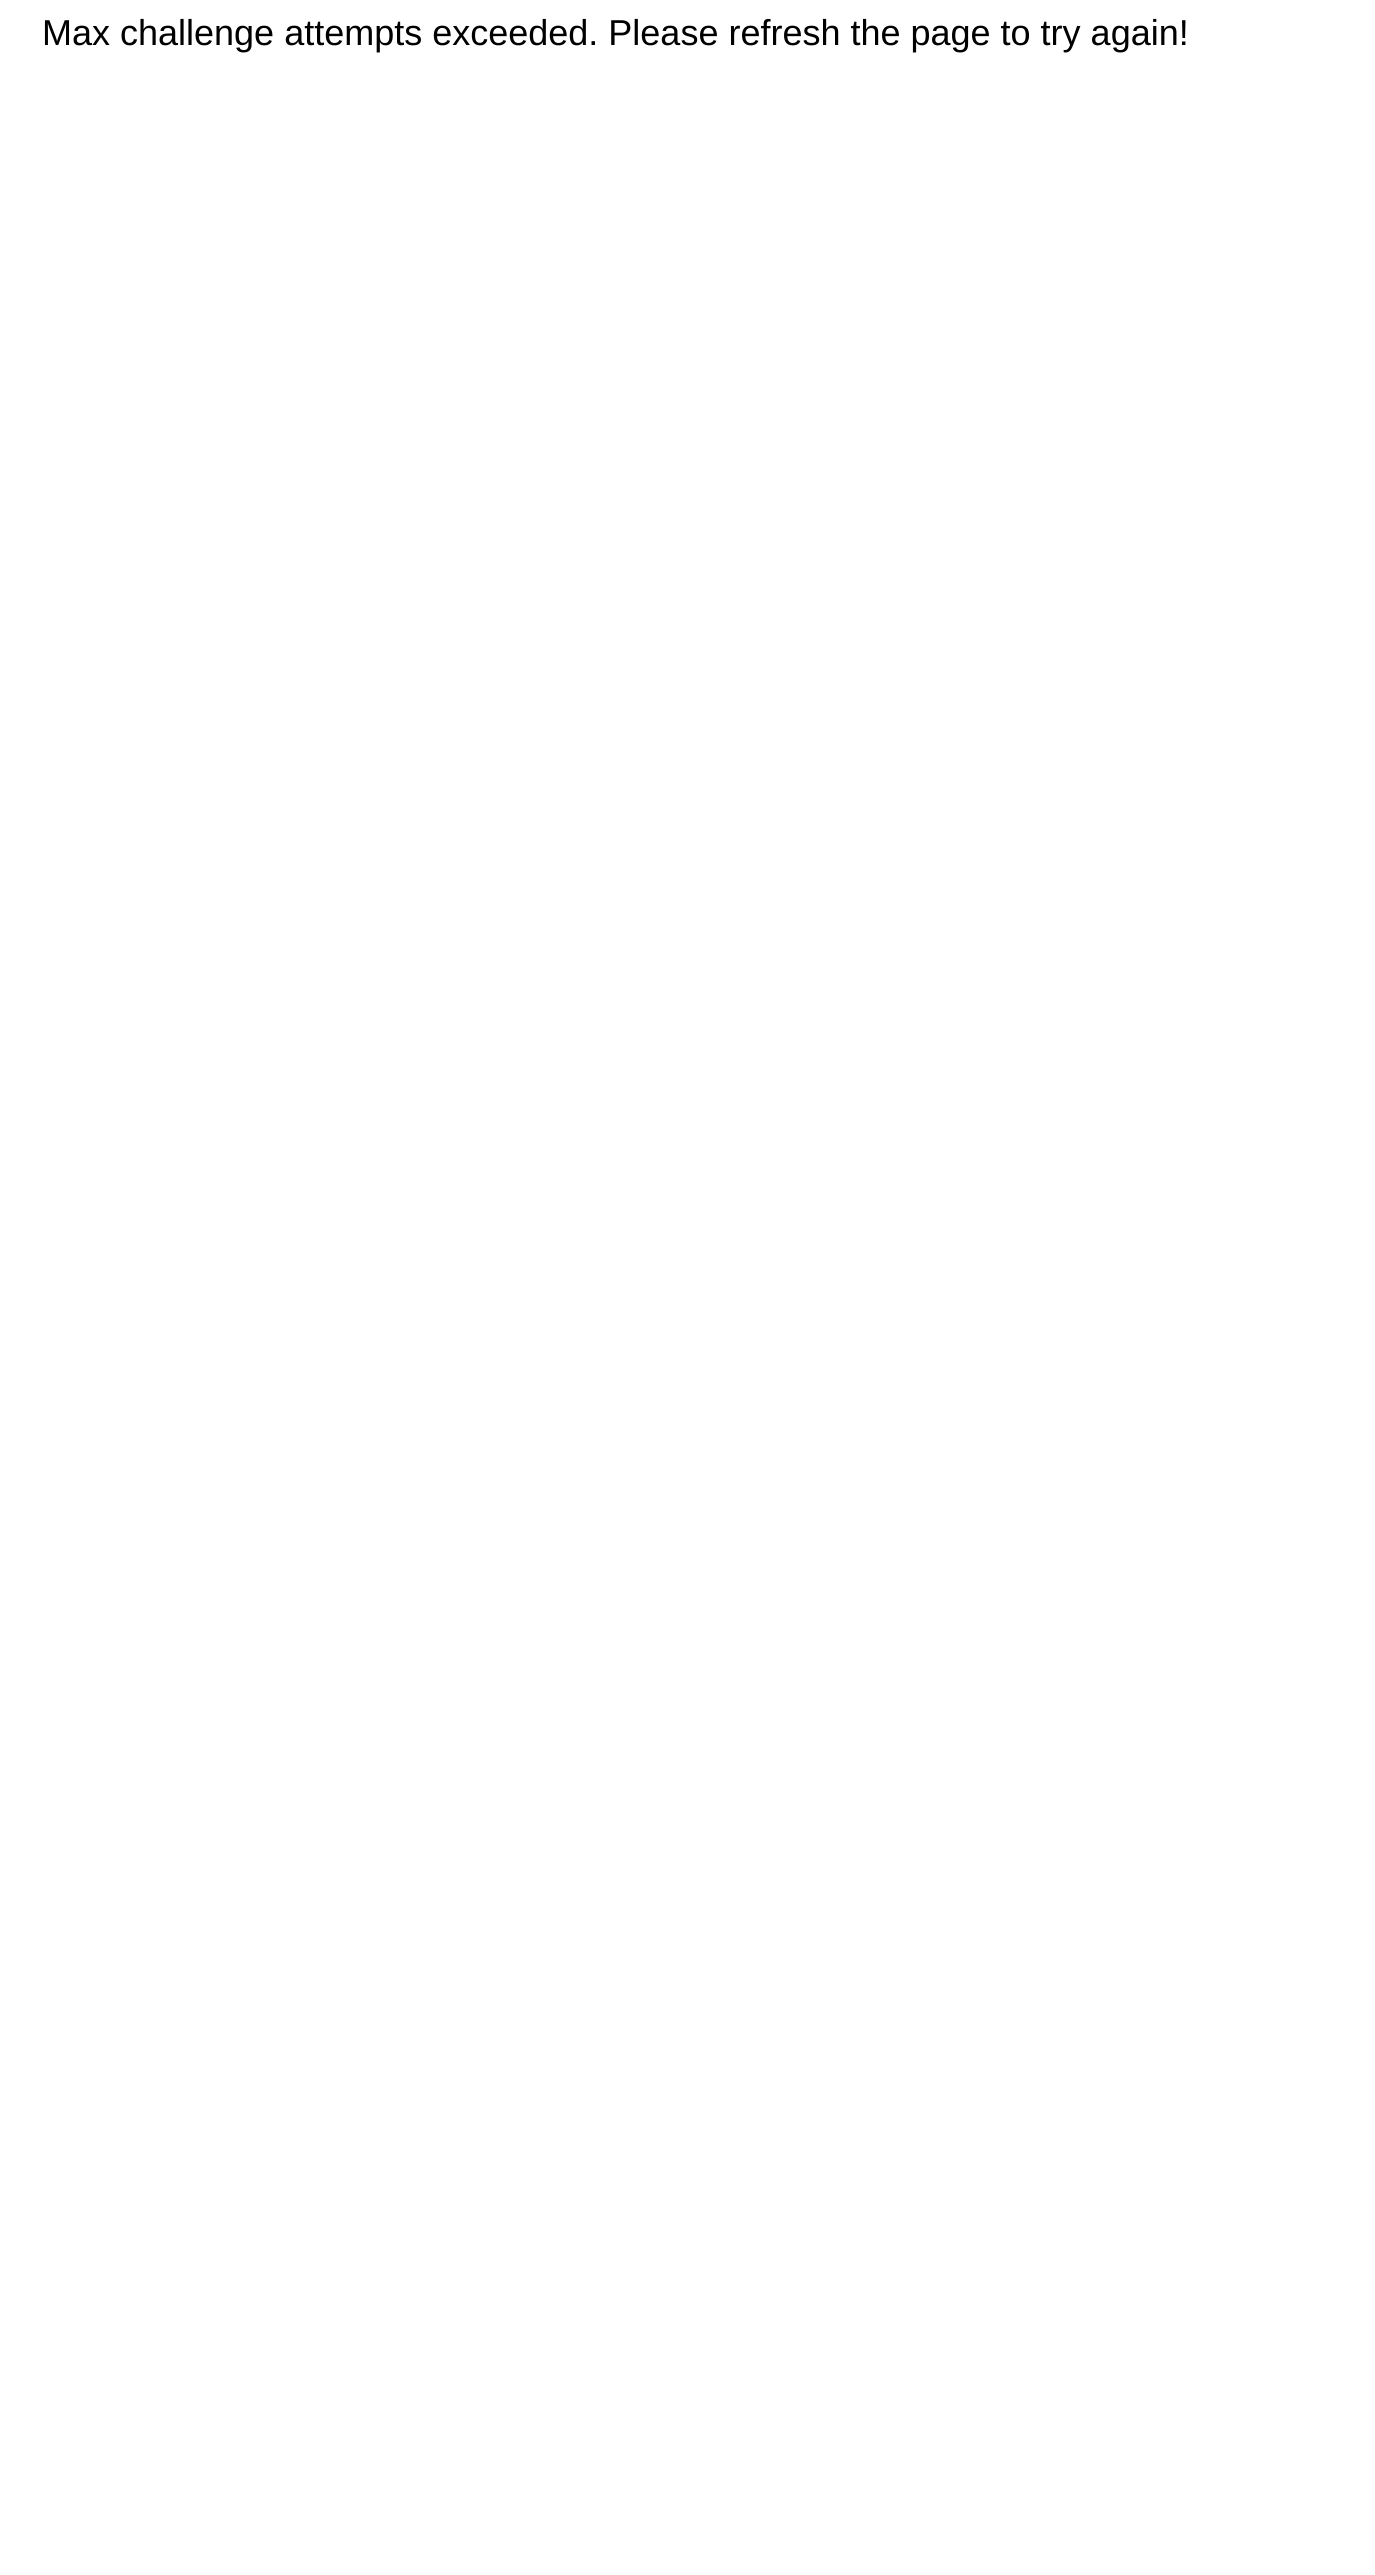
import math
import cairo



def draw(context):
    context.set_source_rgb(1, 1, 1)
    context.paint()
    context.select_font_face("Liberation Sans")
    context.set_font_size(36)
    context.set_source_rgb(0, 0, 0)
    context.move_to(42, 45)
    context.show_text("Max challenge attempts exceeded. Please refresh the page to try again!")


surface = cairo.ImageSurface(cairo.Format.RGB24, 1375, 2575)
context = cairo.Context(surface)
options = cairo.FontOptions()
options.set_hint_metrics(cairo.HintMetrics.OFF)
options.set_hint_style(cairo.HintStyle.NONE)
context.set_font_options(options)
context.set_miter_limit(4)
draw(context)
surface.write_to_png("out.png")
